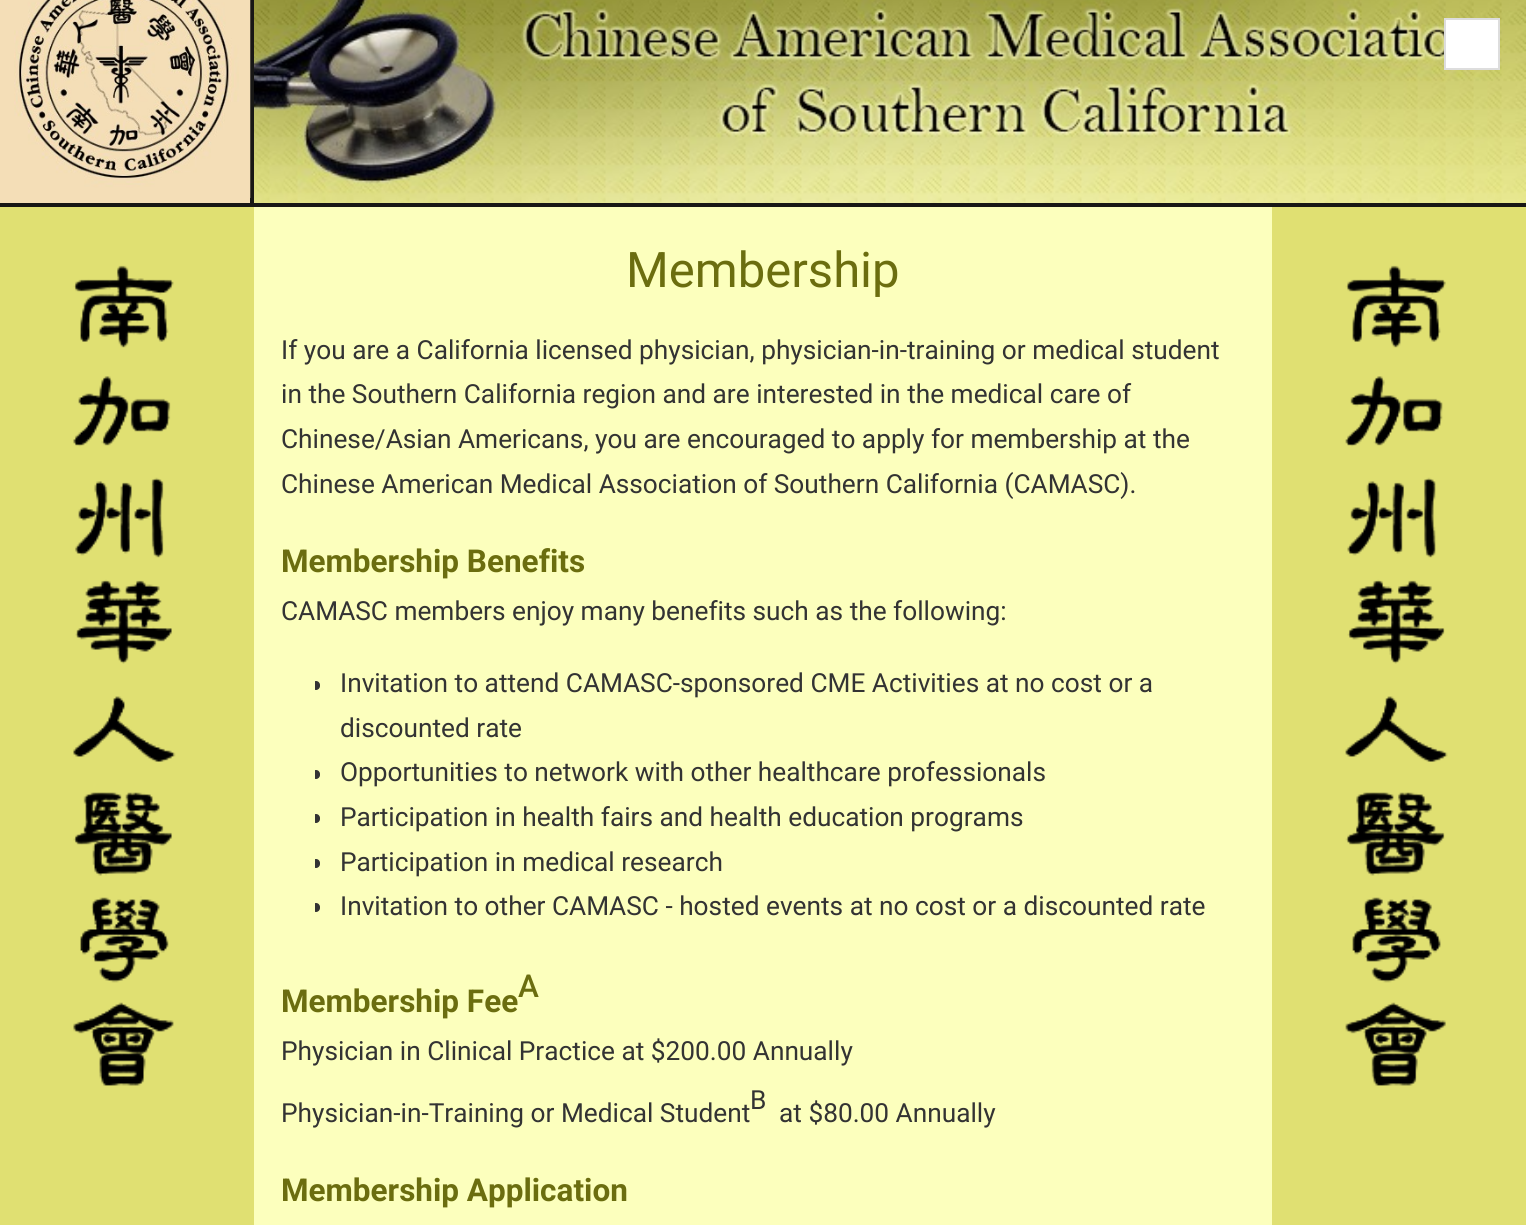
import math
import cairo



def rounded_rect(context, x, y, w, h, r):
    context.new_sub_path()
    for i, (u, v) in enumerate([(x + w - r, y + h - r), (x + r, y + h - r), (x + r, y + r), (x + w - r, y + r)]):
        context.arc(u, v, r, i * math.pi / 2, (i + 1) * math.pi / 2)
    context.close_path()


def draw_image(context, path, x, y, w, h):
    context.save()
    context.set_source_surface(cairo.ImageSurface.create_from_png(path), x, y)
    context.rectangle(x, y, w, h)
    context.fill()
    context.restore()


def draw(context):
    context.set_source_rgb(1, 1, 1)
    context.paint()
    draw_image(context, "images/1.png", 254, 0, 1272, 203)
    context.set_source_rgb(24 / 255, 23 / 255, 21 / 255)
    context.rectangle(0, 203, 1526, 4)
    context.fill()
    context.set_source_rgb(244 / 255, 222 / 255, 183 / 255)
    context.rectangle(0, 0, 250, 203)
    context.fill()
    context.set_source_rgb(24 / 255, 23 / 255, 21 / 255)
    context.rectangle(250, 0, 4, 203)
    context.fill()
    draw_image(context, "images/2.png", 14, 0, 237, 198)
    context.set_source_rgb(1, 1, 1)
    context.rectangle(1445, 19, 54, 50)
    context.fill_preserve()
    context.set_source_rgb(221 / 255, 221 / 255, 221 / 255)
    context.stroke()
    context.set_source_rgb(224 / 255, 224 / 255, 114 / 255)
    context.rectangle(0, 207, 1526, 1018)
    context.fill()
    draw_image(context, "images/3.png", 73, 265, 103, 821)
    context.set_source_rgb(252 / 255, 1, 189 / 255)
    context.rectangle(254, 207, 1018, 1018)
    context.fill()
    context.save()
    context.rectangle(315, 663, 931, 268)
    context.clip()
    context.set_source_rgb(51 / 255, 51 / 255, 51 / 255)
    rounded_rect(context, 312, 681, 8, 9, 4)
    context.fill()
    rounded_rect(context, 312, 770, 8, 9, 4)
    context.fill()
    rounded_rect(context, 312, 814, 8, 9, 4)
    context.fill()
    rounded_rect(context, 312, 859, 8, 9, 4)
    context.fill()
    rounded_rect(context, 312, 903, 8, 9, 4)
    context.fill()
    context.restore()
    draw_image(context, "images/4.png", 1345, 265, 103, 821)
    context.select_font_face("Roboto")
    context.set_font_size(49)
    context.set_source_rgb(107 / 255, 109 / 255, 15 / 255)
    context.move_to(626, 287)
    context.show_text("Membership")
    context.set_font_size(26.25)
    context.set_source_rgb(51 / 255, 51 / 255, 51 / 255)
    context.move_to(281, 359)
    context.show_text("If you are a California licensed physician, physician-in-training or medical student")
    context.move_to(281, 403)
    context.show_text("in the Southern California region and are interested in the medical care of")
    context.move_to(281, 448)
    context.show_text("Chinese/Asian Americans, you are encouraged to apply for membership at the")
    context.move_to(281, 493)
    context.show_text("Chinese American Medical Association of Southern California (CAMASC).")
    context.select_font_face("Roboto", cairo.FontSlant.NORMAL, cairo.FontWeight.BOLD)
    context.set_font_size(31.5)
    context.set_source_rgb(107 / 255, 109 / 255, 15 / 255)
    context.move_to(281, 572)
    context.show_text("Membership Benefits")
    context.select_font_face("Roboto")
    context.set_font_size(26.25)
    context.set_source_rgb(51 / 255, 51 / 255, 51 / 255)
    context.move_to(281, 620)
    context.show_text("CAMASC members enjoy many benefits such as the following:")
    context.move_to(340, 692)
    context.show_text("Invitation to attend CAMASC-sponsored CME Activities at no cost or a")
    context.move_to(340, 737)
    context.show_text("discounted rate")
    context.move_to(340, 781)
    context.show_text("Opportunities to network with other healthcare professionals")
    context.move_to(340, 826)
    context.show_text("Participation in health fairs and health education programs")
    context.move_to(340, 871)
    context.show_text("Participation in medical research")
    context.move_to(340, 915)
    context.show_text("Invitation to other CAMASC - hosted events at no cost or a discounted rate")
    context.select_font_face("Roboto Medium")
    context.set_font_size(31.5)
    context.set_source_rgb(107 / 255, 109 / 255, 15 / 255)
    context.move_to(518, 997)
    context.show_text("A")
    context.select_font_face("Roboto", cairo.FontSlant.NORMAL, cairo.FontWeight.BOLD)
    context.move_to(281, 1012)
    context.show_text("Membership Fee")
    context.select_font_face("Roboto")
    context.set_font_size(26.25)
    context.set_source_rgb(51 / 255, 51 / 255, 51 / 255)
    context.move_to(281, 1060)
    context.show_text("Physician in Clinical Practice at $200.00 Annually")
    context.move_to(281, 1122)
    context.show_text("Physician-in-Training or Medical Student")
    context.move_to(750, 1109)
    context.show_text("B")
    context.move_to(779, 1122)
    context.show_text("at $80.00 Annually")
    context.select_font_face("Roboto", cairo.FontSlant.NORMAL, cairo.FontWeight.BOLD)
    context.set_font_size(31.5)
    context.set_source_rgb(107 / 255, 109 / 255, 15 / 255)
    context.move_to(281, 1201)
    context.show_text("Membership Application")


surface = cairo.ImageSurface(cairo.Format.RGB24, 1526, 1225)
context = cairo.Context(surface)
options = cairo.FontOptions()
options.set_hint_metrics(cairo.HintMetrics.OFF)
options.set_hint_style(cairo.HintStyle.NONE)
context.set_font_options(options)
context.set_miter_limit(4)
draw(context)
surface.write_to_png("out.png")
